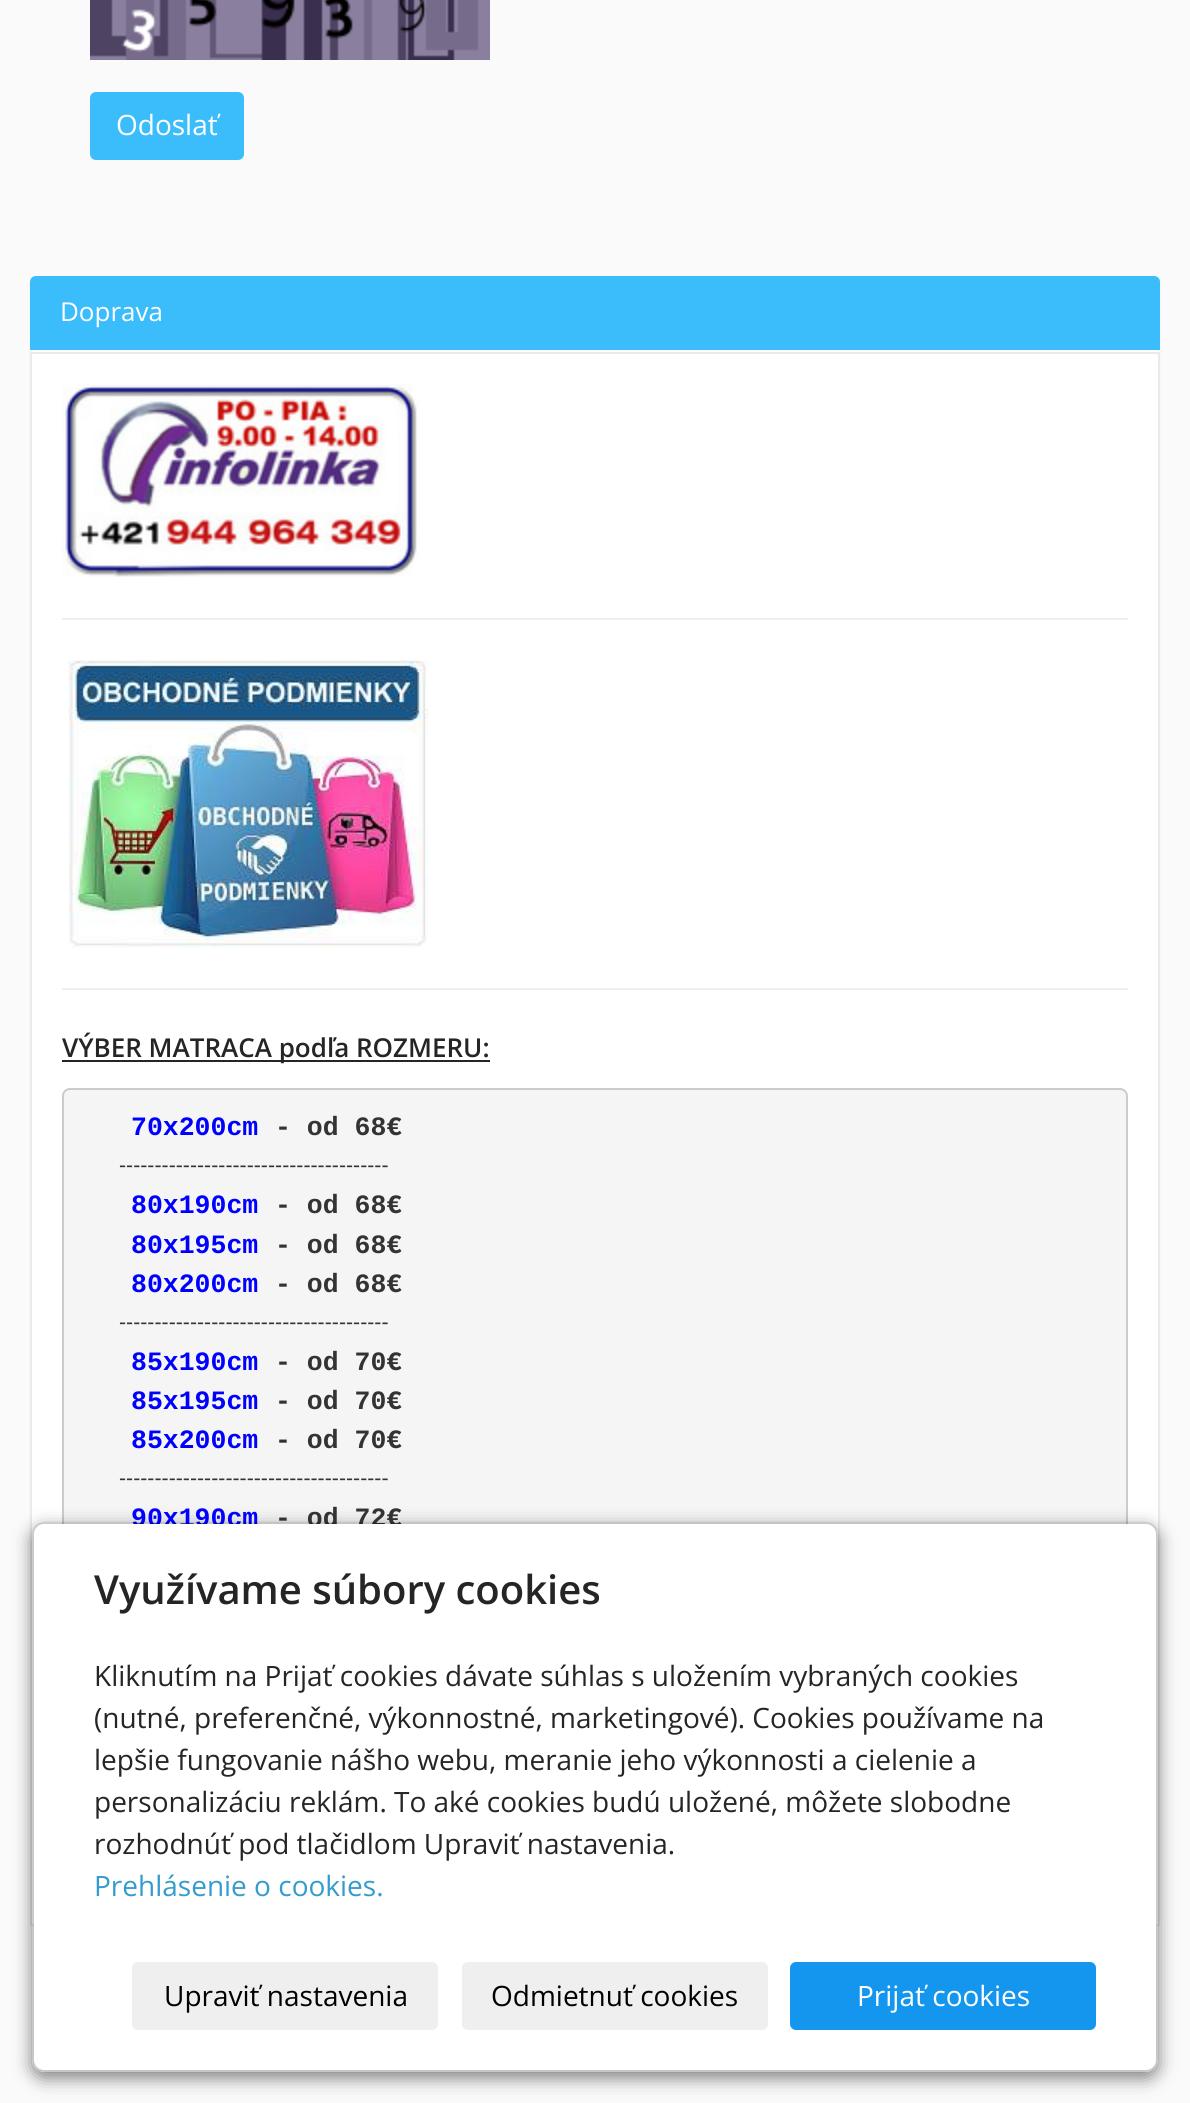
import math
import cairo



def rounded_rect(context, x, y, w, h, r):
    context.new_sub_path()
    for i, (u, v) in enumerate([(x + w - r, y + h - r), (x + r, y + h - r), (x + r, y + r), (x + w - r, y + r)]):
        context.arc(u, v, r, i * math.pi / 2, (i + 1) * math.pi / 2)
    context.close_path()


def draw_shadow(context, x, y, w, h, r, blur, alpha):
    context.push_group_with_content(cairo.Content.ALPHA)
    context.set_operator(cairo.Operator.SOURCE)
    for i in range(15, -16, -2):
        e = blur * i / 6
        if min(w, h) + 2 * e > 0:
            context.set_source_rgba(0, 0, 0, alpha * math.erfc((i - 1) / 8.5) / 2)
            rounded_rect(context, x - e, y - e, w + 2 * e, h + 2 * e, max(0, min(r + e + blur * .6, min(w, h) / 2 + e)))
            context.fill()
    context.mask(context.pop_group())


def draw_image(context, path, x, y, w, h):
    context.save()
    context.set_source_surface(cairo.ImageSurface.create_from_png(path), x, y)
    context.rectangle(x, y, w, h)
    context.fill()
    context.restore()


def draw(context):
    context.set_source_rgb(250 / 255, 250 / 255, 250 / 255)
    context.paint()
    draw_image(context, "images/1.png", 90, 0, 400, 60)
    context.set_source_rgb(59 / 255, 189 / 255, 251 / 255)
    rounded_rect(context, 91, 93, 152, 66, 5)
    context.fill_preserve()
    context.stroke()
    context.set_source_rgb(0, 0, 0)
    draw_shadow(context, 30, 278, 1130, 1650, 6, 1, 0.05)
    context.set_source_rgb(1, 1, 1)
    rounded_rect(context, 30, 276, 1130, 1650, 6)
    context.fill()
    context.set_source_rgb(59 / 255, 189 / 255, 251 / 255)
    context.new_path()
    context.move_to(36, 276)
    context.line_to(1154, 276)
    context.curve_to(1157.5, 276, 1160, 278.5, 1160, 282)
    context.line_to(1160, 352)
    context.line_to(30, 352)
    context.line_to(30, 282)
    context.curve_to(30, 278.5, 32.5, 276, 36, 276)
    context.close_path()
    context.fill()
    context.set_source_rgb(1, 1, 1)
    context.rectangle(30, 350, 1130, 2)
    context.fill()
    context.rectangle(31, 353, 1128, 1572)
    context.set_source_rgb(234 / 255, 234 / 255, 234 / 255)
    context.stroke()
    draw_image(context, "images/2.png", 62, 384, 358, 193)
    context.set_source_rgb(238 / 255, 238 / 255, 238 / 255)
    context.rectangle(62, 618, 1066, 2)
    context.fill()
    draw_image(context, "images/3.png", 68, 660, 360, 288)
    context.rectangle(62, 988, 1066, 2)
    context.fill()
    context.set_source_rgb(37 / 255, 37 / 255, 37 / 255)
    context.rectangle(62, 1060, 428, 2)
    context.fill()
    context.set_source_rgb(245 / 255, 245 / 255, 245 / 255)
    rounded_rect(context, 63, 1089, 1064, 784, 7)
    context.fill_preserve()
    context.set_source_rgb(204 / 255, 204 / 255, 204 / 255)
    context.stroke()
    context.save()
    context.set_fill_rule(cairo.FillRule.EVEN_ODD)
    context.new_path()
    context.move_to(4, 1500)
    context.line_to(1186, 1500)
    context.line_to(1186, 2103)
    context.line_to(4, 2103)
    context.close_path()
    context.move_to(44, 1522)
    context.line_to(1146, 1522)
    context.curve_to(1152.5, 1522, 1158, 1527.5, 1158, 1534)
    context.line_to(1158, 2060)
    context.curve_to(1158, 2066.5, 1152.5, 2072, 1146, 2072)
    context.line_to(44, 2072)
    context.curve_to(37.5, 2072, 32, 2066.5, 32, 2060)
    context.line_to(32, 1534)
    context.curve_to(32, 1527.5, 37.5, 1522, 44, 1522)
    context.close_path()
    context.clip()
    context.set_source_rgb(0, 0, 0)
    draw_shadow(context, 32, 1528, 1126, 550, 12, 9, 0.5)
    context.restore()
    context.select_font_face("Open Sans")
    context.set_font_size(28)
    context.set_source_rgb(1, 1, 1)
    context.move_to(116, 135)
    context.show_text("Odoslať")
    context.set_font_size(26)
    context.move_to(60, 321)
    context.show_text("Doprava")
    context.select_font_face("Open Sans SemiBold")
    context.set_source_rgb(37 / 255, 37 / 255, 37 / 255)
    context.move_to(62, 1057)
    context.show_text("VÝBER MATRACA podľa ROZMERU:")
    context.select_font_face("Liberation Mono", cairo.FontSlant.NORMAL, cairo.FontWeight.BOLD)
    context.set_font_size(26.5)
    context.set_source_rgb(0, 0, 1)
    context.move_to(131, 1135)
    context.show_text("70x200cm")
    context.set_source_rgb(51 / 255, 51 / 255, 51 / 255)
    context.move_to(275, 1135)
    context.show_text("- od 68€")
    context.select_font_face("Liberation Sans")
    context.set_font_size(21.3)
    context.move_to(119, 1172)
    context.show_text("--------------------------------------")
    context.select_font_face("Liberation Mono", cairo.FontSlant.NORMAL, cairo.FontWeight.BOLD)
    context.set_font_size(26.5)
    context.set_source_rgb(0, 0, 1)
    context.move_to(131, 1213)
    context.show_text("80x190cm")
    context.set_source_rgb(51 / 255, 51 / 255, 51 / 255)
    context.move_to(275, 1213)
    context.show_text("- od 68€")
    context.set_source_rgb(0, 0, 1)
    context.move_to(131, 1253)
    context.show_text("80x195cm")
    context.set_source_rgb(51 / 255, 51 / 255, 51 / 255)
    context.move_to(275, 1253)
    context.show_text("- od 68€")
    context.set_source_rgb(0, 0, 1)
    context.move_to(131, 1292)
    context.show_text("80x200cm")
    context.set_source_rgb(51 / 255, 51 / 255, 51 / 255)
    context.move_to(275, 1292)
    context.show_text("- od 68€")
    context.select_font_face("Liberation Sans")
    context.set_font_size(21.3)
    context.move_to(119, 1329)
    context.show_text("--------------------------------------")
    context.select_font_face("Liberation Mono", cairo.FontSlant.NORMAL, cairo.FontWeight.BOLD)
    context.set_font_size(26.5)
    context.set_source_rgb(0, 0, 1)
    context.move_to(131, 1370)
    context.show_text("85x190cm")
    context.set_source_rgb(51 / 255, 51 / 255, 51 / 255)
    context.move_to(275, 1370)
    context.show_text("- od 70€")
    context.set_source_rgb(0, 0, 1)
    context.move_to(131, 1409)
    context.show_text("85x195cm")
    context.set_source_rgb(51 / 255, 51 / 255, 51 / 255)
    context.move_to(275, 1409)
    context.show_text("- od 70€")
    context.set_source_rgb(0, 0, 1)
    context.move_to(131, 1448)
    context.show_text("85x200cm")
    context.set_source_rgb(51 / 255, 51 / 255, 51 / 255)
    context.move_to(275, 1448)
    context.show_text("- od 70€")
    context.select_font_face("Liberation Sans")
    context.set_font_size(21.3)
    context.move_to(119, 1485)
    context.show_text("--------------------------------------")
    context.select_font_face("Liberation Mono", cairo.FontSlant.NORMAL, cairo.FontWeight.BOLD)
    context.set_font_size(26.5)
    context.set_source_rgb(0, 0, 1)
    context.move_to(131, 1526)
    context.show_text("90x190cm")
    context.set_source_rgb(51 / 255, 51 / 255, 51 / 255)
    context.move_to(275, 1526)
    context.show_text("- od 72€")
    context.set_source_rgb(1, 1, 1)
    rounded_rect(context, 34, 1524, 1122, 546, 10)
    context.fill()
    rounded_rect(context, 33, 1523, 1124, 548, 11)
    context.set_source_rgba(0, 0, 0, 0.2)
    context.stroke()
    context.select_font_face("Open Sans SemiBold")
    context.set_font_size(40)
    context.set_source_rgb(37 / 255, 37 / 255, 37 / 255)
    context.move_to(94, 1604)
    context.show_text("Využívame súbory cookies")
    context.select_font_face("Open Sans")
    context.set_font_size(28)
    context.move_to(94, 1686)
    context.show_text("Kliknutím na Prijať cookies dávate súhlas s uložením vybraných cookies")
    context.move_to(94, 1728)
    context.show_text("(nutné, preferenčné, výkonnostné, marketingové). Cookies používame na")
    context.move_to(94, 1770)
    context.show_text("lepšie fungovanie nášho webu, meranie jeho výkonnosti a cielenie a")
    context.move_to(94, 1812)
    context.show_text("personalizáciu reklám. To aké cookies budú uložené, môžete slobodne")
    context.move_to(94, 1854)
    context.show_text("rozhodnúť pod tlačidlom Upraviť nastavenia.")
    context.set_source_rgb(52 / 255, 156 / 255, 205 / 255)
    context.move_to(94, 1896)
    context.show_text("Prehlásenie o cookies.")
    context.set_source_rgb(239 / 255, 239 / 255, 239 / 255)
    rounded_rect(context, 132, 1962, 306, 68, 6)
    context.fill()
    context.set_source_rgb(0, 0, 0)
    context.move_to(164, 2006)
    context.show_text("Upraviť nastavenia")
    context.set_source_rgb(239 / 255, 239 / 255, 239 / 255)
    rounded_rect(context, 462, 1962, 306, 68, 6)
    context.fill()
    context.set_source_rgb(0, 0, 0)
    context.move_to(491, 2006)
    context.show_text("Odmietnuť cookies")
    context.set_source_rgb(20 / 255, 150 / 255, 238 / 255)
    rounded_rect(context, 791, 1963, 304, 66, 5)
    context.fill_preserve()
    context.stroke()
    context.set_source_rgb(1, 1, 1)
    context.move_to(857, 2006)
    context.show_text("Prijať cookies")


surface = cairo.ImageSurface(cairo.Format.RGB24, 1190, 2103)
context = cairo.Context(surface)
options = cairo.FontOptions()
options.set_hint_metrics(cairo.HintMetrics.OFF)
options.set_hint_style(cairo.HintStyle.NONE)
context.set_font_options(options)
context.set_miter_limit(4)
draw(context)
surface.write_to_png("out.png")
